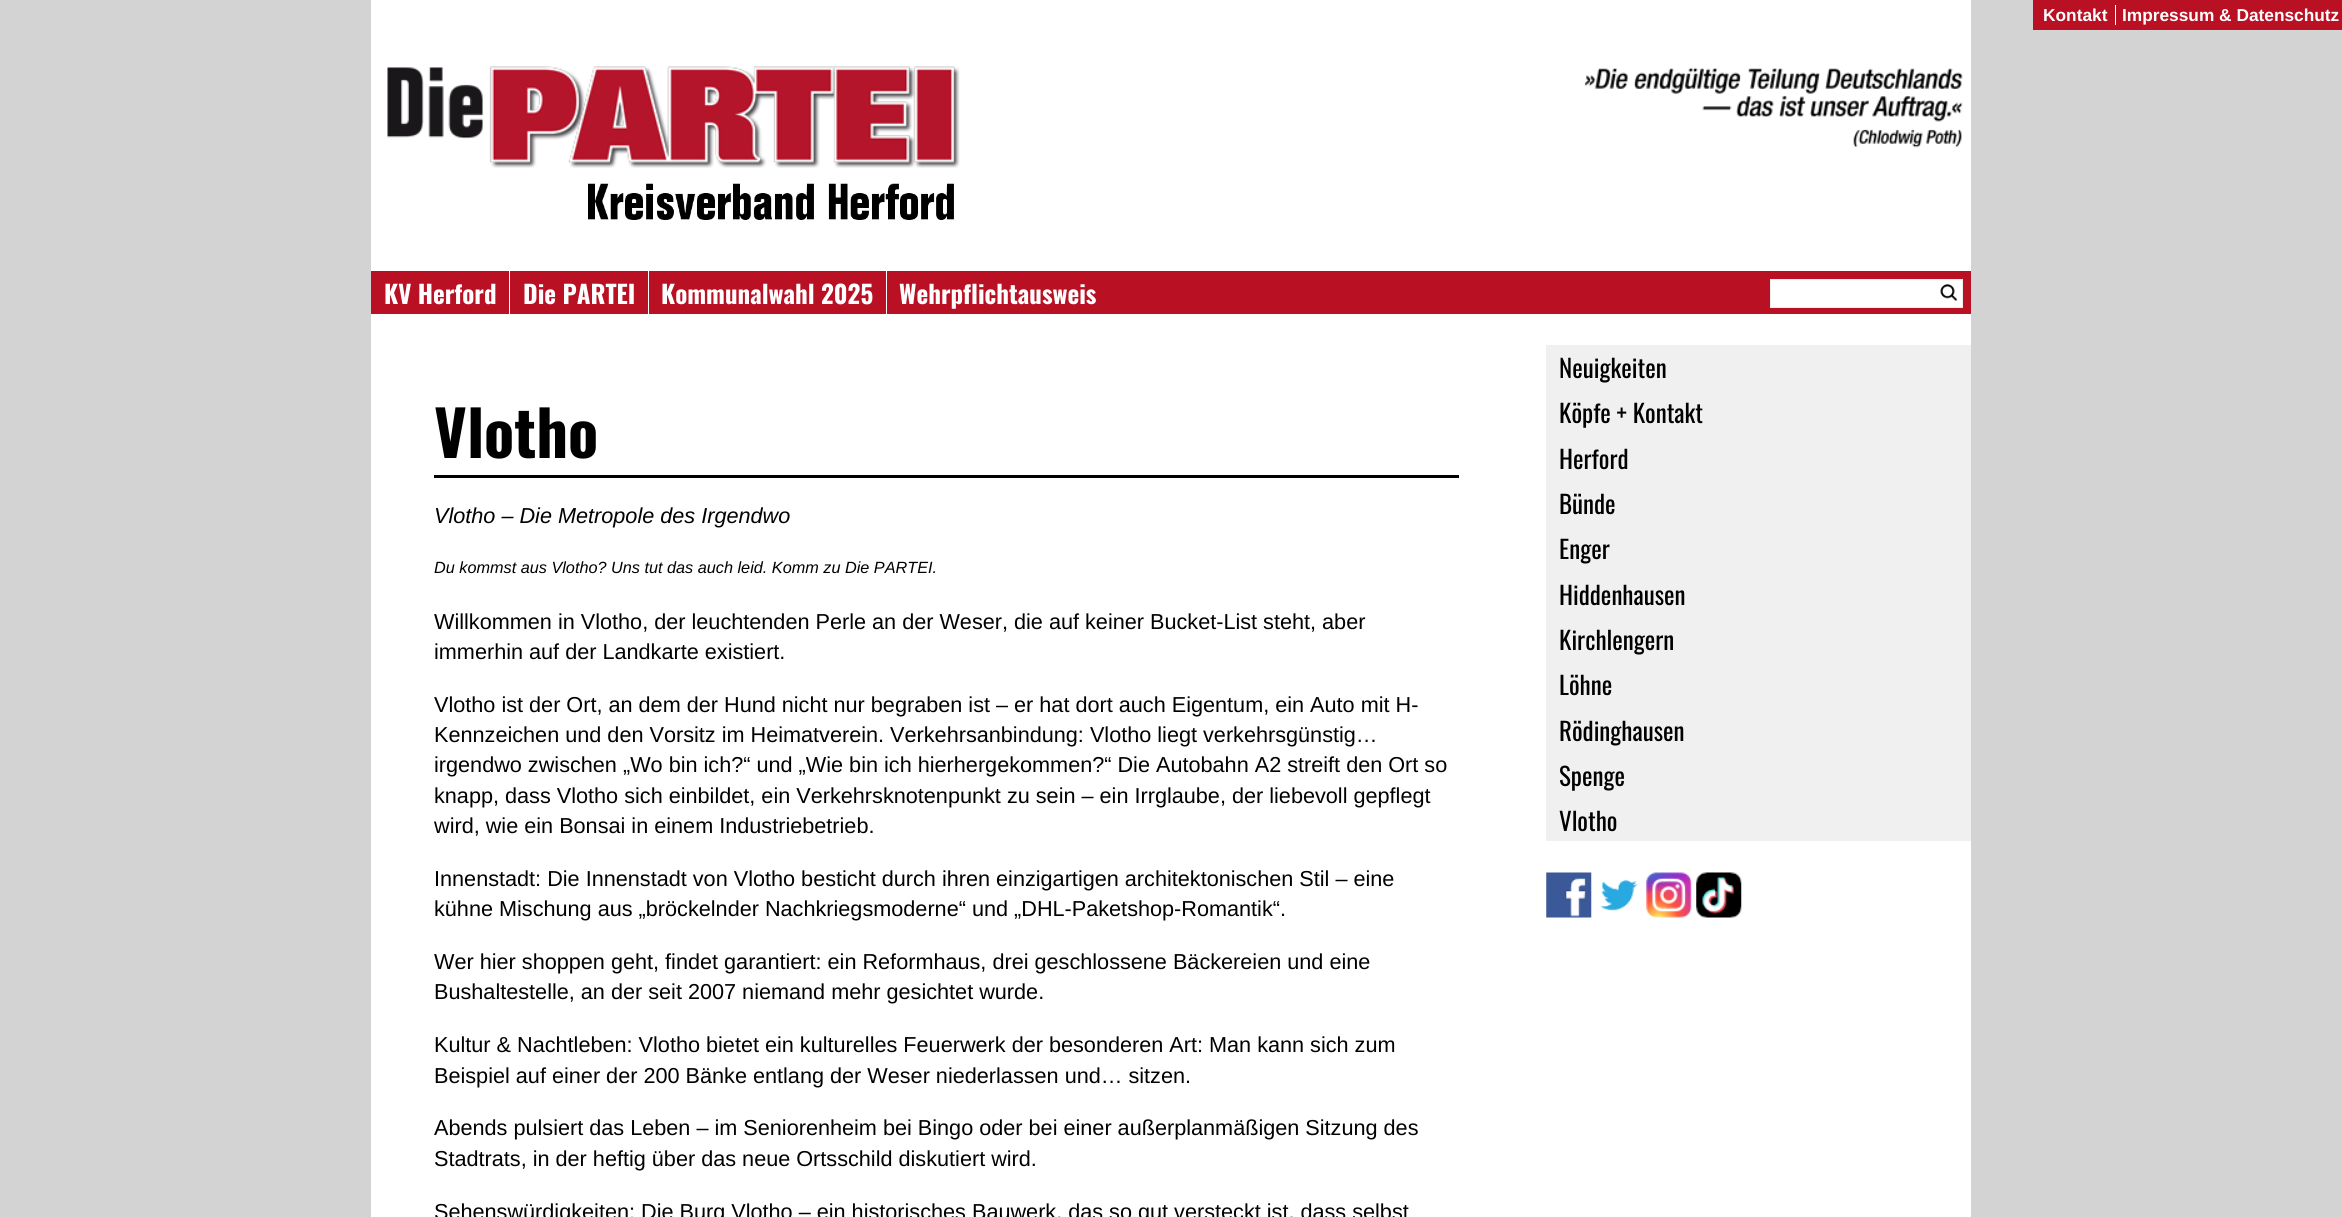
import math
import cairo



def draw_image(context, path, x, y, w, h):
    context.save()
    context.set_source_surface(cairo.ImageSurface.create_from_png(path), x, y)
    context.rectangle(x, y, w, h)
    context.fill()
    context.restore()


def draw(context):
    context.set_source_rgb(211 / 255, 211 / 255, 211 / 255)
    context.paint()
    context.set_source_rgb(1, 1, 1)
    context.rectangle(371, 0, 1600, 1217)
    context.fill()
    context.set_source_rgb(185 / 255, 16 / 255, 35 / 255)
    context.rectangle(2033, 0, 309, 30)
    context.fill()
    context.set_source_rgb(1, 1, 1)
    context.rectangle(2115, 5, 1, 20)
    context.fill()
    draw_image(context, "images/1.png", 387, 66, 573, 102)
    draw_image(context, "images/2.png", 588, 183, 366, 37)
    draw_image(context, "images/3.png", 1584, 67, 379, 81)
    context.set_source_rgb(185 / 255, 16 / 255, 35 / 255)
    context.rectangle(371, 271, 1600, 43)
    context.fill()
    context.set_source_rgb(1, 1, 1)
    context.rectangle(509, 271, 1, 43)
    context.fill()
    context.rectangle(648, 271, 1, 43)
    context.fill()
    context.rectangle(886, 271, 1, 43)
    context.fill()
    context.rectangle(1770.5, 279.5, 192, 28)
    context.fill_preserve()
    context.set_source_rgb(238 / 255, 238 / 255, 238 / 255)
    context.set_line_width(1)
    context.stroke()
    draw_image(context, "images/4.png", 1940, 284, 18, 17)
    context.set_source_rgb(0, 0, 0)
    context.rectangle(434, 475, 1025, 3)
    context.fill()
    context.set_source_rgb(240 / 255, 240 / 255, 240 / 255)
    context.rectangle(1546, 345, 425, 496)
    context.fill()
    draw_image(context, "images/5.png", 1546, 872, 46, 46)
    draw_image(context, "images/6.png", 1601, 879, 37, 32)
    draw_image(context, "images/7.png", 1646, 872, 46, 46)
    draw_image(context, "images/8.png", 1696, 872, 46, 46)
    context.select_font_face("Liberation Sans", cairo.FontSlant.NORMAL, cairo.FontWeight.BOLD)
    context.set_font_size(17.3)
    context.set_source_rgb(1, 1, 1)
    context.move_to(2043, 21)
    context.show_text("Kontakt")
    context.move_to(2122, 21)
    context.show_text("Impressum & Datenschutz")
    context.select_font_face("Oswald", cairo.FontSlant.NORMAL, cairo.FontWeight.BOLD)
    context.set_font_size(25)
    context.move_to(384, 304)
    context.show_text("KV Herford")
    context.move_to(523, 304)
    context.show_text("Die PARTEI")
    context.move_to(661, 304)
    context.show_text("Kommunalwahl 2025")
    context.move_to(899, 304)
    context.show_text("Wehrpflichtausweis")
    context.set_font_size(62.5)
    context.set_source_rgb(0, 0, 0)
    context.move_to(434, 458)
    context.show_text("Vlotho")
    context.select_font_face("Liberation Sans", cairo.FontSlant.ITALIC)
    context.set_font_size(21.65)
    context.move_to(434, 523)
    context.show_text("Vlotho – Die Metropole des Irgendwo")
    context.set_font_size(16.25)
    context.move_to(434, 573)
    context.show_text("Du kommst aus Vlotho? Uns tut das auch leid. Komm zu Die PARTEI.")
    context.select_font_face("Liberation Sans")
    context.set_font_size(21.65)
    context.move_to(434, 629)
    context.show_text("Willkommen in Vlotho, der leuchtenden Perle an der Weser, die auf keiner Bucket-List steht, aber")
    context.move_to(434, 659)
    context.show_text("immerhin auf der Landkarte existiert.")
    context.move_to(434, 712)
    context.show_text("Vlotho ist der Ort, an dem der Hund nicht nur begraben ist – er hat dort auch Eigentum, ein Auto mit H-")
    context.move_to(434, 742)
    context.show_text("Kennzeichen und den Vorsitz im Heimatverein. Verkehrsanbindung: Vlotho liegt verkehrsgünstig…")
    context.move_to(434, 772)
    context.show_text("irgendwo zwischen „Wo bin ich?“ und „Wie bin ich hierhergekommen?“ Die Autobahn A2 streift den Ort so")
    context.move_to(434, 803)
    context.show_text("knapp, dass Vlotho sich einbildet, ein Verkehrsknotenpunkt zu sein – ein Irrglaube, der liebevoll gepflegt")
    context.move_to(434, 833)
    context.show_text("wird, wie ein Bonsai in einem Industriebetrieb.")
    context.move_to(434, 886)
    context.show_text("Innenstadt: Die Innenstadt von Vlotho besticht durch ihren einzigartigen architektonischen Stil – eine")
    context.move_to(434, 916)
    context.show_text("kühne Mischung aus „bröckelnder Nachkriegsmoderne“ und „DHL-Paketshop-Romantik“.")
    context.move_to(434, 969)
    context.show_text("Wer hier shoppen geht, findet garantiert: ein Reformhaus, drei geschlossene Bäckereien und eine")
    context.move_to(434, 999)
    context.show_text("Bushaltestelle, an der seit 2007 niemand mehr gesichtet wurde.")
    context.move_to(434, 1052)
    context.show_text("Kultur & Nachtleben: Vlotho bietet ein kulturelles Feuerwerk der besonderen Art: Man kann sich zum")
    context.move_to(434, 1083)
    context.show_text("Beispiel auf einer der 200 Bänke entlang der Weser niederlassen und… sitzen.")
    context.move_to(434, 1135)
    context.show_text("Abends pulsiert das Leben – im Seniorenheim bei Bingo oder bei einer außerplanmäßigen Sitzung des")
    context.move_to(434, 1166)
    context.show_text("Stadtrats, in der heftig über das neue Ortsschild diskutiert wird.")
    context.move_to(434, 1219)
    context.show_text("Sehenswürdigkeiten: Die Burg Vlotho – ein historisches Bauwerk, das so gut versteckt ist, dass selbst")
    context.select_font_face("Oswald")
    context.set_font_size(25)
    context.move_to(1559, 378)
    context.show_text("Neuigkeiten")
    context.move_to(1559, 423)
    context.show_text("Köpfe + Kontakt")
    context.move_to(1559, 469)
    context.show_text("Herford")
    context.move_to(1559, 514)
    context.show_text("Bünde")
    context.move_to(1559, 559)
    context.show_text("Enger")
    context.move_to(1559, 605)
    context.show_text("Hiddenhausen")
    context.move_to(1559, 650)
    context.show_text("Kirchlengern")
    context.move_to(1559, 695)
    context.show_text("Löhne")
    context.move_to(1559, 741)
    context.show_text("Rödinghausen")
    context.move_to(1559, 786)
    context.show_text("Spenge")
    context.move_to(1559, 831)
    context.show_text("Vlotho")


surface = cairo.ImageSurface(cairo.Format.RGB24, 2342, 1217)
context = cairo.Context(surface)
options = cairo.FontOptions()
options.set_hint_metrics(cairo.HintMetrics.OFF)
options.set_hint_style(cairo.HintStyle.NONE)
context.set_font_options(options)
context.set_miter_limit(4)
draw(context)
surface.write_to_png("out.png")
